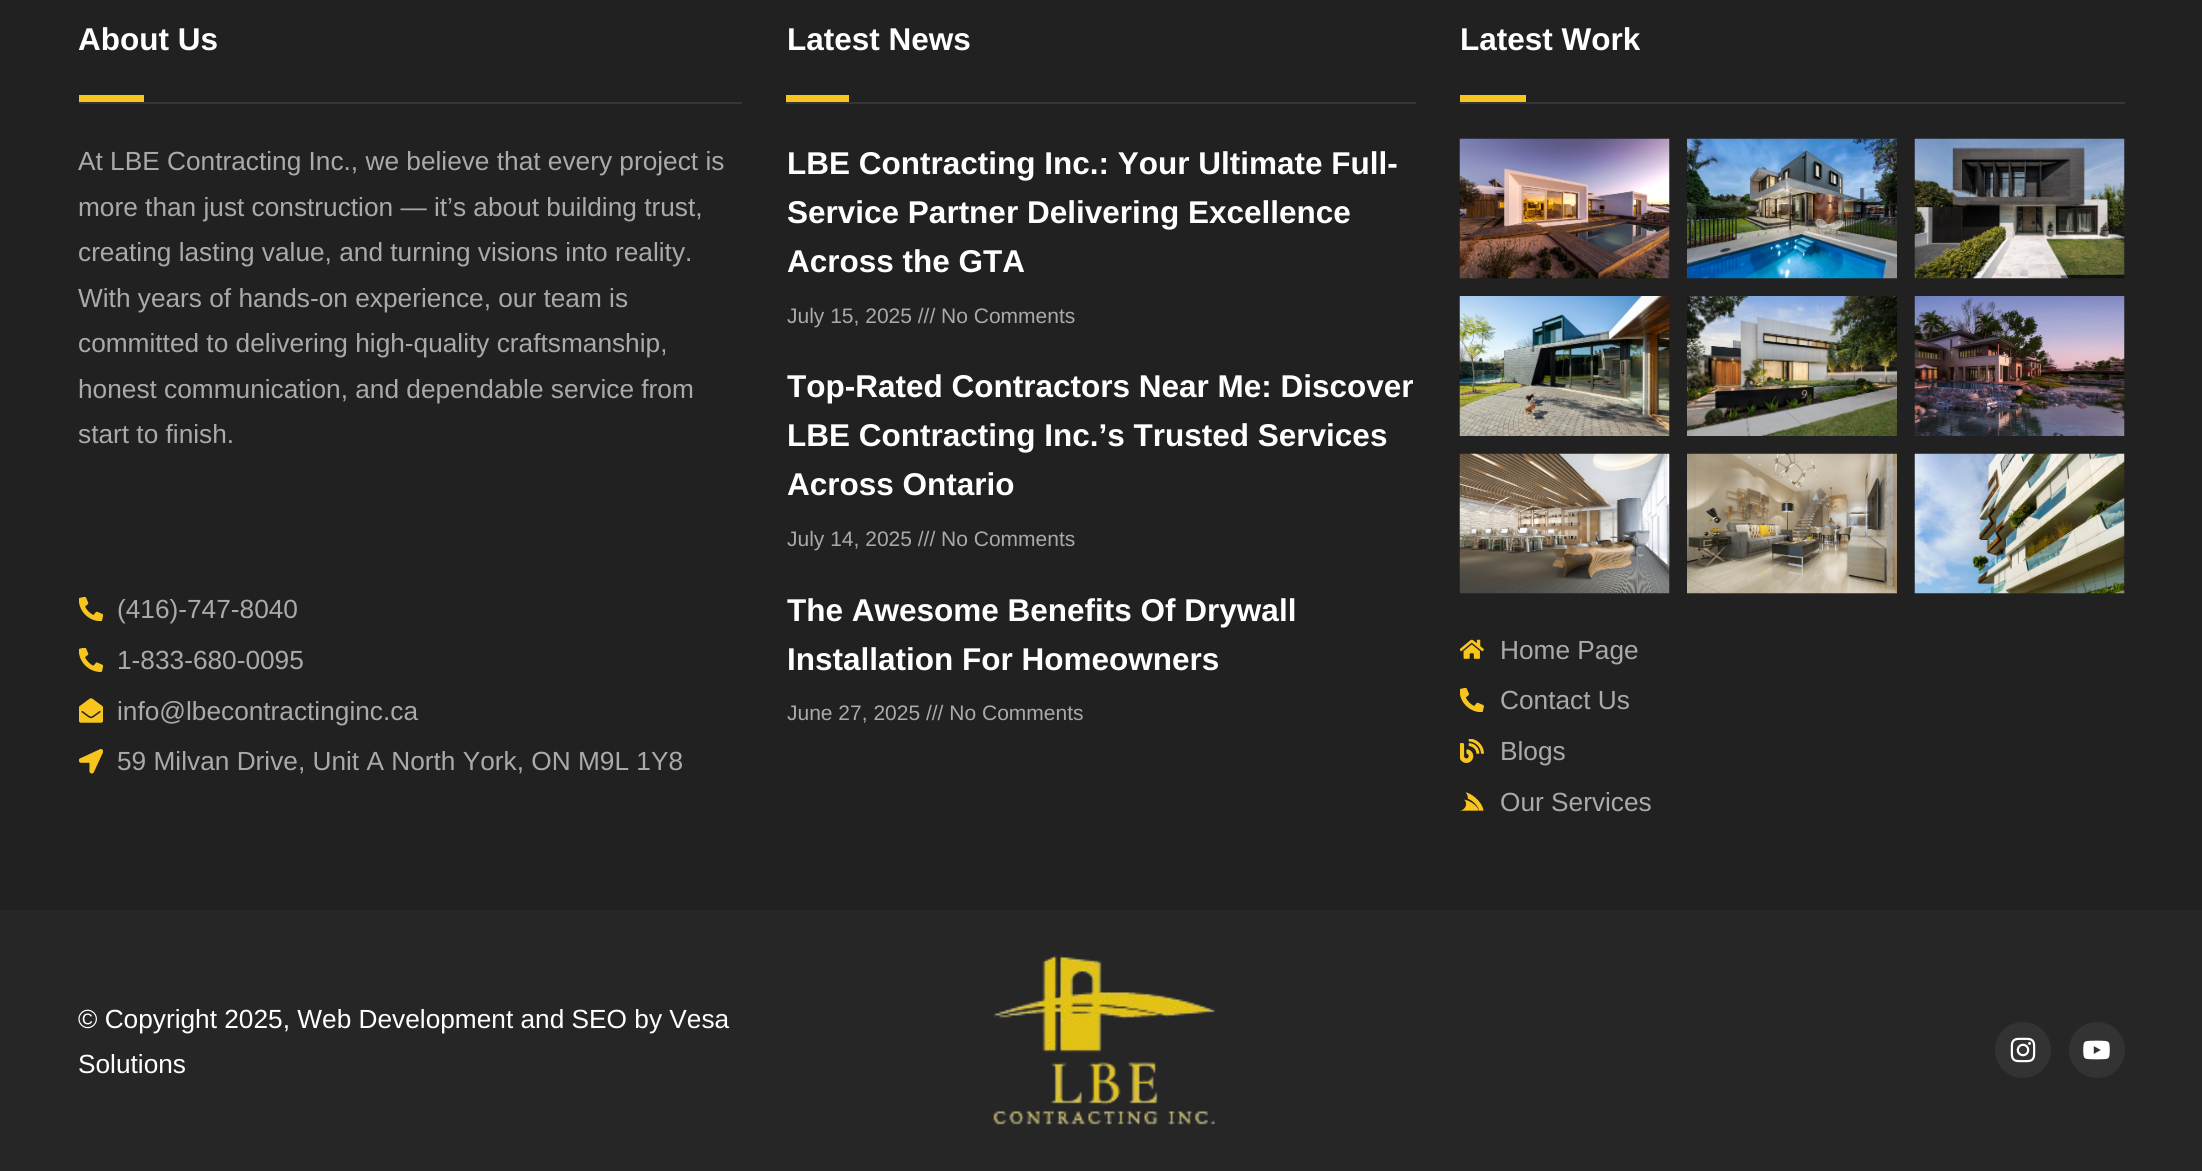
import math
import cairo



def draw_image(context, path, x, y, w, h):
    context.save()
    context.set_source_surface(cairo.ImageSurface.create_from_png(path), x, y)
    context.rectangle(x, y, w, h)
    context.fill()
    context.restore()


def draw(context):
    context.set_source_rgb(38 / 255, 38 / 255, 38 / 255)
    context.paint()
    context.set_source_rgb(33 / 255, 33 / 255, 33 / 255)
    context.rectangle(0, 0, 2202, 910)
    context.fill()
    context.set_source_rgb(54 / 255, 54 / 255, 54 / 255)
    context.rectangle(79, 102, 663, 2)
    context.fill()
    context.set_source_rgb(247 / 255, 197 / 255, 30 / 255)
    context.rectangle(79, 95, 65, 7)
    context.fill()
    draw_image(context, "images/1.png", 79, 597, 24, 24)
    draw_image(context, "images/2.png", 79, 648, 24, 24)
    draw_image(context, "images/3.png", 79, 698, 24, 25)
    draw_image(context, "images/4.png", 79, 749, 24, 25)
    context.set_source_rgb(54 / 255, 54 / 255, 54 / 255)
    context.rectangle(786, 102, 630, 2)
    context.fill()
    context.set_source_rgb(247 / 255, 197 / 255, 30 / 255)
    context.rectangle(786, 95, 63, 7)
    context.fill()
    context.set_source_rgb(54 / 255, 54 / 255, 54 / 255)
    context.rectangle(1460, 102, 665, 2)
    context.fill()
    context.set_source_rgb(247 / 255, 197 / 255, 30 / 255)
    context.rectangle(1460, 95, 66, 7)
    context.fill()
    draw_image(context, "images/5.png", 1459, 138, 211, 141)
    draw_image(context, "images/6.png", 1687, 138, 210, 141)
    draw_image(context, "images/7.png", 1914, 138, 211, 141)
    draw_image(context, "images/8.png", 1459, 296, 211, 140)
    draw_image(context, "images/9.png", 1687, 296, 210, 140)
    draw_image(context, "images/10.png", 1914, 296, 211, 140)
    draw_image(context, "images/11.png", 1459, 453, 211, 141)
    draw_image(context, "images/12.png", 1687, 453, 210, 141)
    draw_image(context, "images/13.png", 1914, 453, 211, 141)
    draw_image(context, "images/14.png", 1460, 639, 24, 20)
    draw_image(context, "images/15.png", 1460, 688, 24, 24)
    draw_image(context, "images/16.png", 1460, 739, 24, 24)
    draw_image(context, "images/17.png", 1460, 792, 24, 19)
    draw_image(context, "images/18.png", 993, 955, 222, 170)
    context.set_source_rgb(51 / 255, 51 / 255, 51 / 255)
    context.arc(2023, 1050, 28, 0, 2 * math.pi)
    context.fill()
    draw_image(context, "images/19.png", 2010, 1037, 26, 26)
    context.arc(2097, 1050, 28, 0, 2 * math.pi)
    context.fill()
    draw_image(context, "images/20.png", 2083, 1040, 27, 20)
    context.select_font_face("Liberation Sans", cairo.FontSlant.NORMAL, cairo.FontWeight.BOLD)
    context.set_font_size(31.5)
    context.set_source_rgb(1, 1, 1)
    context.move_to(78, 50)
    context.show_text("About Us")
    context.select_font_face("Liberation Sans")
    context.set_font_size(26.25)
    context.set_source_rgb(170 / 255, 170 / 255, 170 / 255)
    context.move_to(78, 170)
    context.show_text("At LBE Contracting Inc., we believe that every project is")
    context.move_to(78, 216)
    context.show_text("more than just construction — it’s about building trust,")
    context.move_to(78, 261)
    context.show_text("creating lasting value, and turning visions into reality.")
    context.move_to(78, 307)
    context.show_text("With years of hands-on experience, our team is")
    context.move_to(78, 352)
    context.show_text("committed to delivering high-quality craftsmanship,")
    context.move_to(78, 398)
    context.show_text("honest communication, and dependable service from")
    context.move_to(78, 443)
    context.show_text("start to finish.")
    context.move_to(117, 618)
    context.show_text("(416)-747-8040")
    context.move_to(117, 669)
    context.show_text("1-833-680-0095")
    context.move_to(117, 720)
    context.show_text("info@lbecontractinginc.ca")
    context.move_to(117, 770)
    context.show_text("59 Milvan Drive, Unit A North York, ON M9L 1Y8")
    context.select_font_face("Liberation Sans", cairo.FontSlant.NORMAL, cairo.FontWeight.BOLD)
    context.set_font_size(31.5)
    context.set_source_rgb(1, 1, 1)
    context.move_to(787, 50)
    context.show_text("Latest News")
    context.move_to(787, 174)
    context.show_text("LBE Contracting Inc.: Your Ultimate Full-")
    context.move_to(787, 223)
    context.show_text("Service Partner Delivering Excellence")
    context.move_to(787, 272)
    context.show_text("Across the GTA")
    context.select_font_face("Liberation Sans")
    context.set_font_size(21)
    context.set_source_rgb(170 / 255, 170 / 255, 170 / 255)
    context.move_to(787, 323)
    context.show_text("July 15, 2025 /// No Comments")
    context.select_font_face("Liberation Sans", cairo.FontSlant.NORMAL, cairo.FontWeight.BOLD)
    context.set_font_size(31.5)
    context.set_source_rgb(1, 1, 1)
    context.move_to(787, 397)
    context.show_text("Top-Rated Contractors Near Me: Discover")
    context.move_to(787, 446)
    context.show_text("LBE Contracting Inc.’s Trusted Services")
    context.move_to(787, 495)
    context.show_text("Across Ontario")
    context.select_font_face("Liberation Sans")
    context.set_font_size(21)
    context.set_source_rgb(170 / 255, 170 / 255, 170 / 255)
    context.move_to(787, 546)
    context.show_text("July 14, 2025 /// No Comments")
    context.select_font_face("Liberation Sans", cairo.FontSlant.NORMAL, cairo.FontWeight.BOLD)
    context.set_font_size(31.5)
    context.set_source_rgb(1, 1, 1)
    context.move_to(787, 621)
    context.show_text("The Awesome Benefits Of Drywall")
    context.move_to(787, 670)
    context.show_text("Installation For Homeowners")
    context.select_font_face("Liberation Sans")
    context.set_font_size(21)
    context.set_source_rgb(170 / 255, 170 / 255, 170 / 255)
    context.move_to(787, 720)
    context.show_text("June 27, 2025 /// No Comments")
    context.select_font_face("Liberation Sans", cairo.FontSlant.NORMAL, cairo.FontWeight.BOLD)
    context.set_font_size(31.5)
    context.set_source_rgb(1, 1, 1)
    context.move_to(1460, 50)
    context.show_text("Latest Work")
    context.select_font_face("Liberation Sans")
    context.set_font_size(26.25)
    context.set_source_rgb(170 / 255, 170 / 255, 170 / 255)
    context.move_to(1500, 659)
    context.show_text("Home Page")
    context.move_to(1500, 709)
    context.show_text("Contact Us")
    context.move_to(1500, 760)
    context.show_text("Blogs")
    context.move_to(1500, 811)
    context.show_text("Our Services")
    context.set_source_rgb(1, 1, 1)
    context.move_to(78, 1028)
    context.show_text("© Copyright 2025, Web Development and SEO by Vesa")
    context.move_to(78, 1073)
    context.show_text("Solutions")


surface = cairo.ImageSurface(cairo.Format.RGB24, 2202, 1171)
context = cairo.Context(surface)
options = cairo.FontOptions()
options.set_hint_metrics(cairo.HintMetrics.OFF)
options.set_hint_style(cairo.HintStyle.NONE)
context.set_font_options(options)
context.set_miter_limit(4)
draw(context)
surface.write_to_png("out.png")
